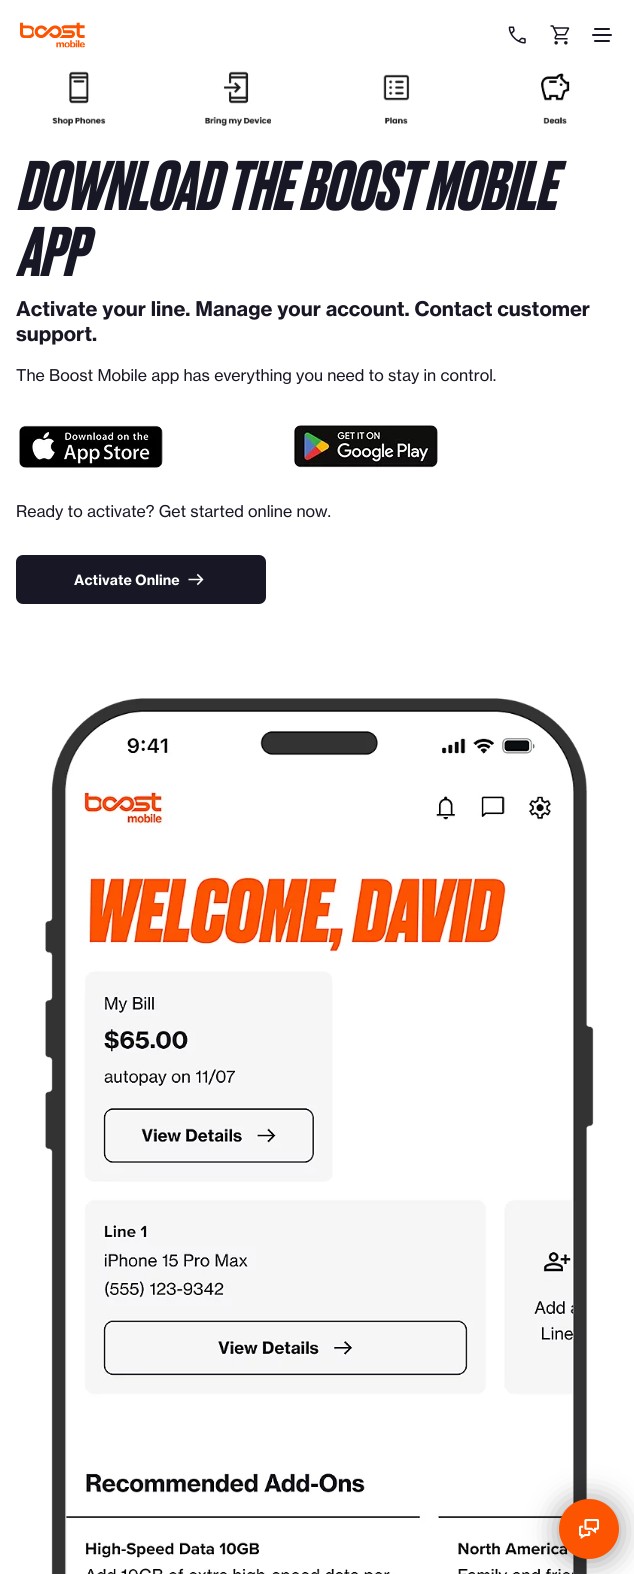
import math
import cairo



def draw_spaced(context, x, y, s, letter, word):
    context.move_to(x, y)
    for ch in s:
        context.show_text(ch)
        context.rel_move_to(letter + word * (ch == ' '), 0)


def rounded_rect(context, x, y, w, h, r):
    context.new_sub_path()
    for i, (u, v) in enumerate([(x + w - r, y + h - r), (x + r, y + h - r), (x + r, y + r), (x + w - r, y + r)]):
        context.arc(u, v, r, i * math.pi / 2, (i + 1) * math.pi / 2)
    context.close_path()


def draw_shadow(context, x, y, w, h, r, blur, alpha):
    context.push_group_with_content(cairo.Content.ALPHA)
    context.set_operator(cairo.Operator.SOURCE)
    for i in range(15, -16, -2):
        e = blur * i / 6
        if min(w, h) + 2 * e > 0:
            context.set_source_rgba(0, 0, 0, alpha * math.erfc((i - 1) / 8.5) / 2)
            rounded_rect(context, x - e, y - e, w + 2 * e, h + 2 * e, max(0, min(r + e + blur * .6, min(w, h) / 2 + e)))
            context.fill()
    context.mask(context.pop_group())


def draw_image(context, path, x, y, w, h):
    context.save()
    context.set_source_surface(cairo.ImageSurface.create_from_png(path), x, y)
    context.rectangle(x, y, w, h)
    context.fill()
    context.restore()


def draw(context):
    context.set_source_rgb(1, 1, 1)
    context.paint()
    draw_image(context, "images/1.png", 20, 22, 65, 26)
    draw_image(context, "images/2.png", 508, 26, 18, 18)
    draw_image(context, "images/3.png", 550, 25, 20, 20)
    context.set_source_rgb(23 / 255, 23 / 255, 37 / 255)
    rounded_rect(context, 594, 28, 16, 2, 1)
    context.fill()
    rounded_rect(context, 592, 34, 20, 2, 1)
    context.fill()
    rounded_rect(context, 594, 40, 16, 2, 1)
    context.fill()
    draw_image(context, "images/4.png", 52, 71, 54, 55)
    draw_image(context, "images/5.png", 205, 71, 66, 55)
    draw_image(context, "images/6.png", 383, 74, 27, 50)
    draw_image(context, "images/7.png", 541, 73, 29, 51)
    draw_image(context, "images/8.png", 19, 425, 144, 43)
    draw_image(context, "images/9.png", 294, 425, 144, 43)
    rounded_rect(context, 16, 555, 250, 49, 7)
    context.fill()
    draw_image(context, "images/10.png", 188, 573, 16, 13)
    draw_image(context, "images/11.png", 45, 698, 549, 876)
    context.set_source_rgb(0, 0, 0)
    draw_shadow(context, 559, 1501, 60, 60, 30, 15, 0.4)
    context.set_source_rgb(252 / 255, 84 / 255, 0)
    context.arc(589, 1529, 30, 0, 2 * math.pi)
    context.fill()
    draw_image(context, "images/12.png", 579, 1519, 20, 20)
    context.select_font_face("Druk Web", cairo.FontSlant.ITALIC, cairo.FontWeight.BOLD)
    context.set_font_size(66)
    context.set_source_rgb(23 / 255, 23 / 255, 37 / 255)
    draw_spaced(context, 16, 210, "DOWNLOAD THE BOOST MOBILE", -0.4, 0)
    draw_spaced(context, 16, 276, "APP", -0.4, 0)
    context.select_font_face("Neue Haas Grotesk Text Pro", cairo.FontSlant.NORMAL, cairo.FontWeight.BOLD)
    context.set_font_size(20)
    context.move_to(16, 316)
    context.show_text("Activate your line. Manage your account. Contact customer")
    context.move_to(16, 341)
    context.show_text("support.")
    context.select_font_face("Neue Haas Grotesk Text Pro")
    context.set_font_size(16)
    context.move_to(16, 381)
    context.show_text("The Boost Mobile app has everything you need to stay in control.")
    context.move_to(16, 517)
    context.show_text("Ready to activate? Get started online now.")
    context.select_font_face("Neue Haas Grotesk Text Pro", cairo.FontSlant.NORMAL, cairo.FontWeight.BOLD)
    context.set_font_size(14)
    context.set_source_rgb(1, 1, 1)
    draw_spaced(context, 74, 585, "Activate Online", 0.1, 0)


surface = cairo.ImageSurface(cairo.Format.RGB24, 634, 1574)
context = cairo.Context(surface)
options = cairo.FontOptions()
options.set_hint_metrics(cairo.HintMetrics.OFF)
options.set_hint_style(cairo.HintStyle.NONE)
context.set_font_options(options)
context.set_miter_limit(4)
draw(context)
surface.write_to_png("out.png")
